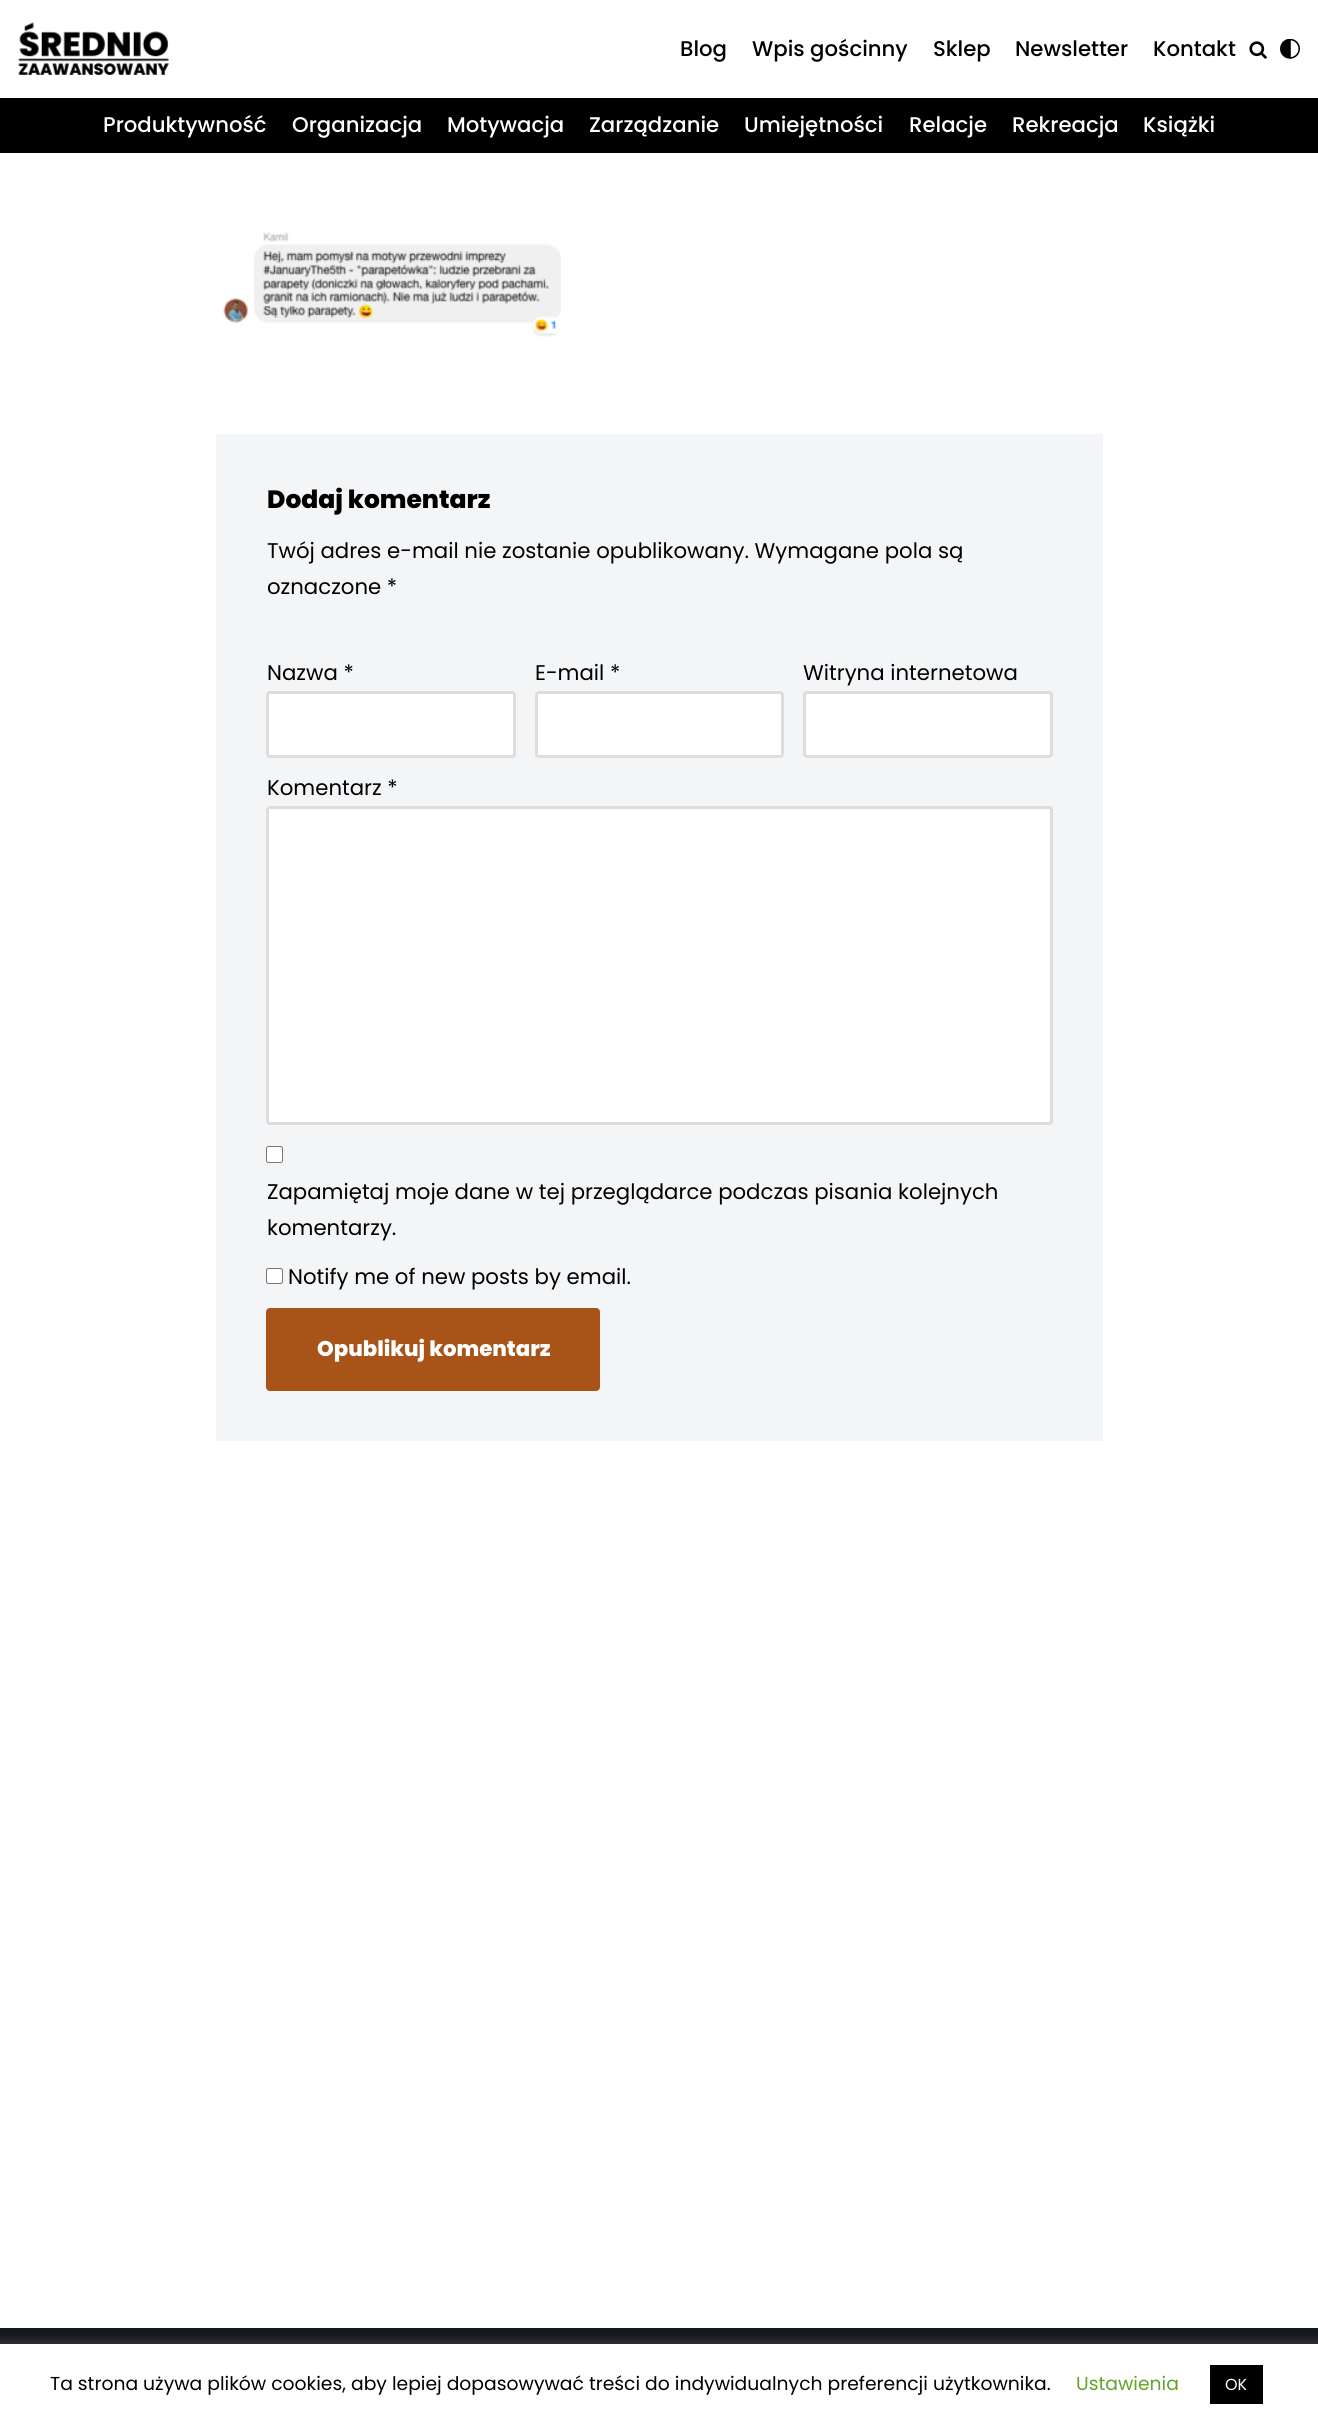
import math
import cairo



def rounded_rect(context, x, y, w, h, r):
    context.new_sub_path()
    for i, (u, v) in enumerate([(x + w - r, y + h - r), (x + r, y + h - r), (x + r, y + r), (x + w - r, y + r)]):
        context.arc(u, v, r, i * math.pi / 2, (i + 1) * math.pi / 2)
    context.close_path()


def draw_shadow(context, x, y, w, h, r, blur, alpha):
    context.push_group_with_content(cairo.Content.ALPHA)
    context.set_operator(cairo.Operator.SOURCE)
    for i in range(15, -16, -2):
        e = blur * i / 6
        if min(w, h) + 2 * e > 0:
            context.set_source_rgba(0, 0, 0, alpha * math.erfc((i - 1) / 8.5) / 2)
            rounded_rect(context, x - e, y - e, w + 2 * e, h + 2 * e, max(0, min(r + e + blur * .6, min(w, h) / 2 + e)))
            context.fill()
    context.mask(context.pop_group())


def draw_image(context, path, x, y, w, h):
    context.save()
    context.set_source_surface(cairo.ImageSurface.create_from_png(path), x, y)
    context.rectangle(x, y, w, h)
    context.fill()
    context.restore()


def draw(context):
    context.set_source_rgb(1, 1, 1)
    context.paint()
    draw_image(context, "images/1.png", 18, 22, 151, 53)
    draw_image(context, "images/2.png", 1249, 41, 18, 18)
    draw_image(context, "images/3.png", 1280, 39, 20, 20)
    context.set_source_rgb(0, 0, 0)
    context.rectangle(0, 98, 1318, 55)
    context.fill()
    draw_image(context, "images/4.png", 223, 232, 338, 105)
    context.set_source_rgb(244 / 255, 245 / 255, 247 / 255)
    context.rectangle(216, 434, 887, 1007)
    context.fill()
    context.set_source_rgb(1, 1, 1)
    rounded_rect(context, 267.5, 692.5, 247, 64, 2.5)
    context.fill_preserve()
    context.set_source_rgb(221 / 255, 221 / 255, 221 / 255)
    context.set_line_width(3)
    context.stroke()
    context.set_source_rgb(1, 1, 1)
    rounded_rect(context, 536.5, 692.5, 246, 64, 2.5)
    context.fill_preserve()
    context.set_source_rgb(221 / 255, 221 / 255, 221 / 255)
    context.stroke()
    context.set_source_rgb(1, 1, 1)
    rounded_rect(context, 804.5, 692.5, 247, 64, 2.5)
    context.fill_preserve()
    context.set_source_rgb(221 / 255, 221 / 255, 221 / 255)
    context.stroke()
    context.set_source_rgb(1, 1, 1)
    rounded_rect(context, 267.5, 807.5, 784, 316, 2.5)
    context.fill_preserve()
    context.set_source_rgb(221 / 255, 221 / 255, 221 / 255)
    context.stroke()
    context.set_source_rgb(1, 1, 1)
    rounded_rect(context, 266.5, 1146.5, 16, 16, 2)
    context.fill_preserve()
    context.set_source_rgb(118 / 255, 118 / 255, 118 / 255)
    context.set_line_width(1)
    context.stroke()
    context.set_source_rgb(1, 1, 1)
    rounded_rect(context, 266.5, 1268.5, 16, 15, 2)
    context.fill_preserve()
    context.set_source_rgb(118 / 255, 118 / 255, 118 / 255)
    context.stroke()
    context.set_source_rgb(168 / 255, 84 / 255, 24 / 255)
    rounded_rect(context, 266, 1308, 334, 83, 4)
    context.fill()
    context.set_source_rgb(20 / 255, 23 / 255, 28 / 255)
    context.rectangle(0, 2328, 1318, 16)
    context.fill()
    context.set_source_rgb(172 / 255, 171 / 255, 171 / 255)
    draw_shadow(context, 0, 2343, 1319, 81, 0, 6, 0.3)
    context.set_source_rgb(1, 1, 1)
    context.rectangle(0, 2344, 1318, 80)
    context.fill()
    context.set_source_rgb(0, 0, 0)
    context.rectangle(1210, 2365, 53, 39)
    context.fill()
    context.select_font_face("Poppins Medium")
    context.set_font_size(21.25)
    context.move_to(680, 56)
    context.show_text("Blog")
    context.move_to(752, 56)
    context.show_text("Wpis gościnny")
    context.move_to(933, 56)
    context.show_text("Sklep")
    context.move_to(1015, 56)
    context.show_text("Newsletter")
    context.move_to(1153, 56)
    context.show_text("Kontakt")
    context.set_source_rgb(1, 1, 1)
    context.move_to(103, 132)
    context.show_text("Produktywność")
    context.move_to(292, 132)
    context.show_text("Organizacja")
    context.move_to(447, 132)
    context.show_text("Motywacja")
    context.move_to(589, 132)
    context.show_text("Zarządzanie")
    context.move_to(744, 132)
    context.show_text("Umiejętności")
    context.move_to(909, 132)
    context.show_text("Relacje")
    context.move_to(1012, 132)
    context.show_text("Rekreacja")
    context.move_to(1143, 132)
    context.show_text("Książki")
    context.select_font_face("Poppins ExtraBold")
    context.set_font_size(25)
    context.set_source_rgb(0, 0, 0)
    context.move_to(267, 508)
    context.show_text("Dodaj komentarz")
    context.select_font_face("Poppins")
    context.set_font_size(21.25)
    context.move_to(267, 558)
    context.show_text("Twój adres e-mail nie zostanie opublikowany. Wymagane pola są")
    context.move_to(267, 594)
    context.show_text("oznaczone *")
    context.move_to(267, 680)
    context.show_text("Nazwa *")
    context.move_to(535, 680)
    context.show_text("E-mail *")
    context.move_to(803, 680)
    context.show_text("Witryna internetowa")
    context.move_to(267, 795)
    context.show_text("Komentarz *")
    context.move_to(267, 1199)
    context.show_text("Zapamiętaj moje dane w tej przeglądarce podczas pisania kolejnych")
    context.move_to(267, 1235)
    context.show_text("komentarzy.")
    context.move_to(288, 1284)
    context.show_text("Notify me of new posts by email.")
    context.select_font_face("Poppins ExtraBold")
    context.set_source_rgb(1, 1, 1)
    context.move_to(317, 1356)
    context.show_text("Opublikuj komentarz")
    context.select_font_face("Poppins")
    context.set_font_size(18.75)
    context.set_source_rgb(0, 0, 0)
    context.move_to(50, 2390)
    context.show_text("Ta strona używa plików cookies, aby lepiej dopasowywać treści do indywidualnych preferencji użytkownika.")
    context.set_source_rgb(98 / 255, 163 / 255, 41 / 255)
    context.move_to(1076, 2390)
    context.show_text("Ustawienia")
    context.set_font_size(16)
    context.set_source_rgb(1, 1, 1)
    context.move_to(1225, 2390)
    context.show_text("OK")


surface = cairo.ImageSurface(cairo.Format.RGB24, 1318, 2424)
context = cairo.Context(surface)
options = cairo.FontOptions()
options.set_hint_metrics(cairo.HintMetrics.OFF)
options.set_hint_style(cairo.HintStyle.NONE)
context.set_font_options(options)
context.set_miter_limit(4)
draw(context)
surface.write_to_png("out.png")
